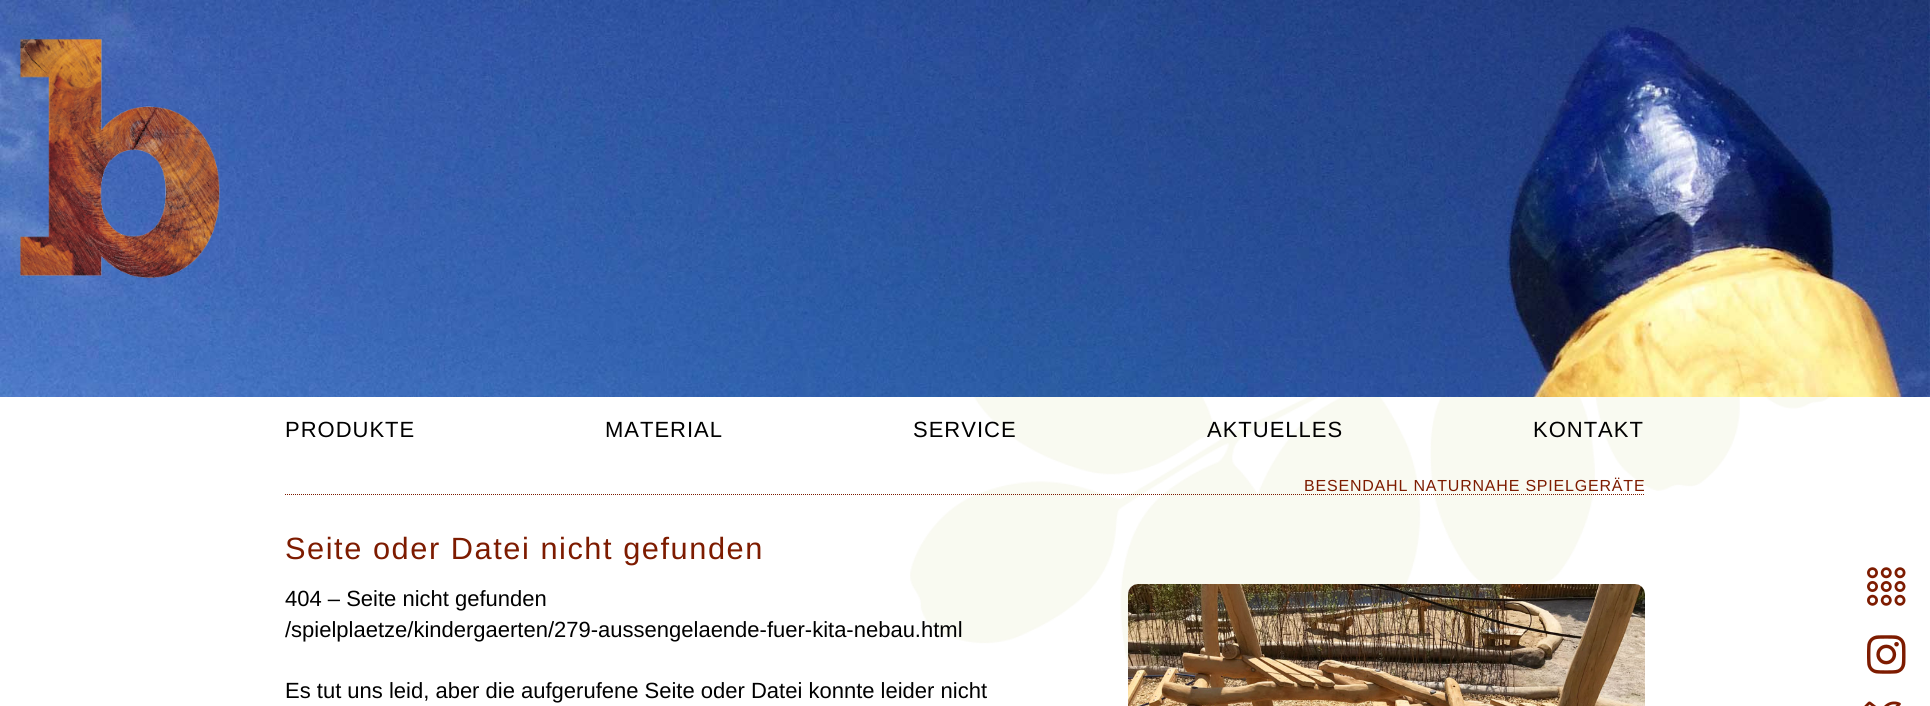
import math
import cairo



def draw_spaced(context, x, y, s, letter, word):
    context.move_to(x, y)
    for ch in s:
        context.show_text(ch)
        context.rel_move_to(letter + word * (ch == ' '), 0)


def draw_image(context, path, x, y, w, h):
    context.save()
    context.set_source_surface(cairo.ImageSurface.create_from_png(path), x, y)
    context.rectangle(x, y, w, h)
    context.fill()
    context.restore()


def draw(context):
    context.set_source_rgb(1, 1, 1)
    context.paint()
    draw_image(context, "images/1.png", 0, 0, 1930, 397)
    draw_image(context, "images/2.png", 20, 39, 200, 239)
    draw_image(context, "images/3.png", 910, 397, 920, 269)
    context.new_path()
    context.move_to(285, 494.5)
    context.line_to(1645, 494.5)
    context.set_source_rgb(125 / 255, 27 / 255, 0)
    context.set_line_width(1)
    context.set_dash([1, 1])
    context.stroke()
    draw_image(context, "images/4.png", 1128, 584, 517, 122)
    draw_image(context, "images/5.png", 1867, 567, 39, 39)
    draw_image(context, "images/6.png", 1867, 635, 39, 39)
    draw_image(context, "images/7.png", 1864, 701, 37, 5)
    context.select_font_face("Liberation Sans")
    context.set_font_size(22)
    context.set_source_rgb(0, 0, 0)
    draw_spaced(context, 285, 437, "PRODUKTE", 1, 0)
    draw_spaced(context, 605, 437, "MATERIAL", 1, 0)
    draw_spaced(context, 913, 437, "SERVICE", 1, 0)
    draw_spaced(context, 1207, 437, "AKTUELLES", 1, 0)
    draw_spaced(context, 1533, 437, "KONTAKT", 1, 0)
    context.set_font_size(16)
    context.set_source_rgb(125 / 255, 27 / 255, 0)
    draw_spaced(context, 1304, 491, "BESENDAHL NATURNAHE SPIELGERÄTE", 0.8, 0)
    context.set_font_size(30.75)
    draw_spaced(context, 285, 559, "Seite oder Datei nicht gefunden", 1.55, 0)
    context.set_font_size(22)
    context.set_source_rgb(0, 0, 0)
    context.move_to(285, 606)
    context.show_text("404 – Seite nicht gefunden")
    context.move_to(285, 637)
    context.show_text("/spielplaetze/kindergaerten/279-aussengelaende-fuer-kita-nebau.html")
    context.move_to(285, 698)
    context.show_text("Es tut uns leid, aber die aufgerufene Seite oder Datei konnte leider nicht")


surface = cairo.ImageSurface(cairo.Format.RGB24, 1930, 706)
context = cairo.Context(surface)
options = cairo.FontOptions()
options.set_hint_metrics(cairo.HintMetrics.OFF)
options.set_hint_style(cairo.HintStyle.NONE)
context.set_font_options(options)
context.set_miter_limit(4)
draw(context)
surface.write_to_png("out.png")
